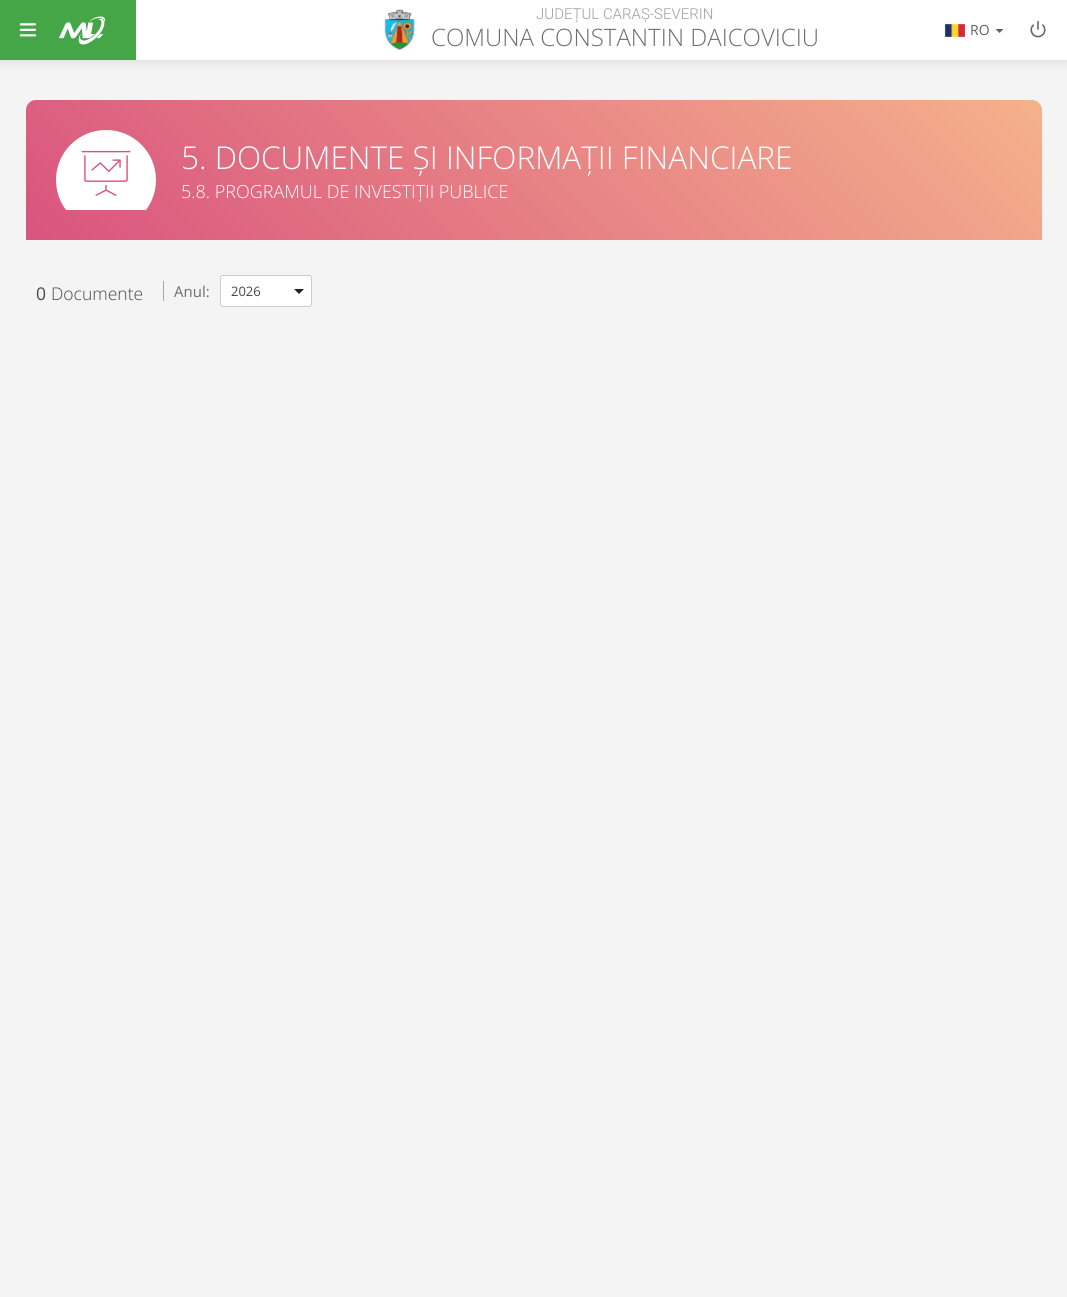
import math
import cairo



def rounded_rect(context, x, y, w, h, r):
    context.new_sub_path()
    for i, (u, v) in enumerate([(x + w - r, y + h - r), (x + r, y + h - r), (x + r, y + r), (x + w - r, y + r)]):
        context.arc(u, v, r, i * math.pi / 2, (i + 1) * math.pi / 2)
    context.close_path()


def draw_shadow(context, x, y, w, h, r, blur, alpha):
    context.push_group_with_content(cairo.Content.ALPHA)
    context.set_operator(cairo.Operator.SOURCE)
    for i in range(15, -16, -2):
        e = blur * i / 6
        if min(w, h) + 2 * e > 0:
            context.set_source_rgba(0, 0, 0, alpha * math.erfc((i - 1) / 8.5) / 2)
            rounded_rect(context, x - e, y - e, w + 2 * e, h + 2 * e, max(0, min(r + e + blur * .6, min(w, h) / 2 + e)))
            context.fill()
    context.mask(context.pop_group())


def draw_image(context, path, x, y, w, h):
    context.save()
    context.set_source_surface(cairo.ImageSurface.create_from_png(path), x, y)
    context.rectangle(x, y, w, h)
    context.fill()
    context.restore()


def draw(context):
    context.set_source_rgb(244 / 255, 244 / 255, 244 / 255)
    context.paint()
    context.set_source_rgb(0, 0, 0)
    draw_shadow(context, 0, 2, 1067, 60, 0, 5, 0.1)
    context.set_source_rgb(1, 1, 1)
    context.rectangle(136, 0, 931, 60)
    context.fill()
    context.set_source_rgb(68 / 255, 166 / 255, 71 / 255)
    context.rectangle(0, 0, 136, 60)
    context.fill()
    draw_image(context, "images/1.png", 19, 23, 17, 14)
    draw_image(context, "images/2.png", 59, 16, 46, 29)
    draw_image(context, "images/3.png", 384, 9, 31, 41)
    draw_image(context, "images/4.png", 944, 23, 21, 14)
    context.set_source_rgb(92 / 255, 97 / 255, 105 / 255)
    context.new_path()
    context.move_to(995.5, 29)
    context.line_to(1003.5, 29)
    context.line_to(999.5, 33)
    context.close_path()
    context.fill()
    draw_image(context, "images/5.png", 1030, 21, 16, 17)
    gradient = cairo.LinearGradient(245, 459, 823, -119)
    gradient.add_color_stop_rgba(0, 217 / 255, 84 / 255, 126 / 255, 1)
    gradient.add_color_stop_rgba(1, 245 / 255, 177 / 255, 140 / 255, 1)
    context.set_source(gradient)
    context.new_path()
    context.move_to(36, 100)
    context.line_to(1032, 100)
    context.curve_to(1037.5, 100, 1042, 104.5, 1042, 110)
    context.line_to(1042, 240)
    context.line_to(26, 240)
    context.line_to(26, 110)
    context.curve_to(26, 104.5, 30.5, 100, 36, 100)
    context.close_path()
    context.fill()
    context.save()
    context.rectangle(56, 130, 100, 80)
    context.clip()
    context.set_source_rgb(1, 1, 1)
    context.arc(106, 180, 50, 0, 2 * math.pi)
    context.fill()
    context.restore()
    draw_image(context, "images/6.png", 81, 150, 50, 46)
    context.set_source_rgb(165 / 255, 165 / 255, 165 / 255)
    context.rectangle(163, 281, 1, 20)
    context.fill()
    context.set_source_rgb(1, 1, 1)
    rounded_rect(context, 220.5, 275.5, 91, 31, 2.5)
    context.fill_preserve()
    context.set_source_rgb(204 / 255, 204 / 255, 204 / 255)
    context.set_line_width(1)
    context.stroke()
    context.set_source_rgb(33 / 255, 33 / 255, 33 / 255)
    context.new_path()
    context.move_to(294, 289)
    context.line_to(299, 294)
    context.line_to(304, 289)
    context.close_path()
    context.fill()
    context.select_font_face("Roboto Light")
    context.set_font_size(15)
    context.set_source_rgb(158 / 255, 158 / 255, 158 / 255)
    context.move_to(536, 19)
    context.show_text("JUDEȚUL CARAȘ-SEVERIN")
    context.select_font_face("Open Sans Light")
    context.set_font_size(24)
    context.set_source_rgb(110 / 255, 110 / 255, 110 / 255)
    context.move_to(431, 46)
    context.show_text("COMUNA CONSTANTIN DAICOVICIU")
    context.select_font_face("Open Sans")
    context.set_font_size(14)
    context.set_source_rgb(92 / 255, 97 / 255, 105 / 255)
    context.move_to(970, 35)
    context.show_text("RO")
    context.select_font_face("Open Sans Light")
    context.set_font_size(31.5)
    context.set_source_rgb(1, 1, 1)
    context.move_to(181, 169)
    context.show_text("5. DOCUMENTE ȘI INFORMAȚII FINANCIARE")
    context.set_font_size(18)
    context.move_to(181, 198)
    context.show_text("5.8. PROGRAMUL DE INVESTIȚII PUBLICE")
    context.select_font_face("Open Sans")
    context.set_font_size(17.5)
    context.set_source_rgb(72 / 255, 72 / 255, 72 / 255)
    context.move_to(36, 300)
    context.show_text("0")
    context.select_font_face("Open Sans Light")
    context.move_to(51, 300)
    context.show_text("Documente")
    context.select_font_face("Open Sans")
    context.set_font_size(15)
    context.set_source_rgb(110 / 255, 110 / 255, 110 / 255)
    context.move_to(174, 297)
    context.show_text("Anul:")
    context.set_font_size(13)
    context.set_source_rgb(72 / 255, 72 / 255, 72 / 255)
    context.move_to(231, 296)
    context.show_text("2026")


surface = cairo.ImageSurface(cairo.Format.RGB24, 1067, 1297)
context = cairo.Context(surface)
options = cairo.FontOptions()
options.set_hint_metrics(cairo.HintMetrics.OFF)
options.set_hint_style(cairo.HintStyle.NONE)
context.set_font_options(options)
context.set_miter_limit(4)
draw(context)
surface.write_to_png("out.png")
